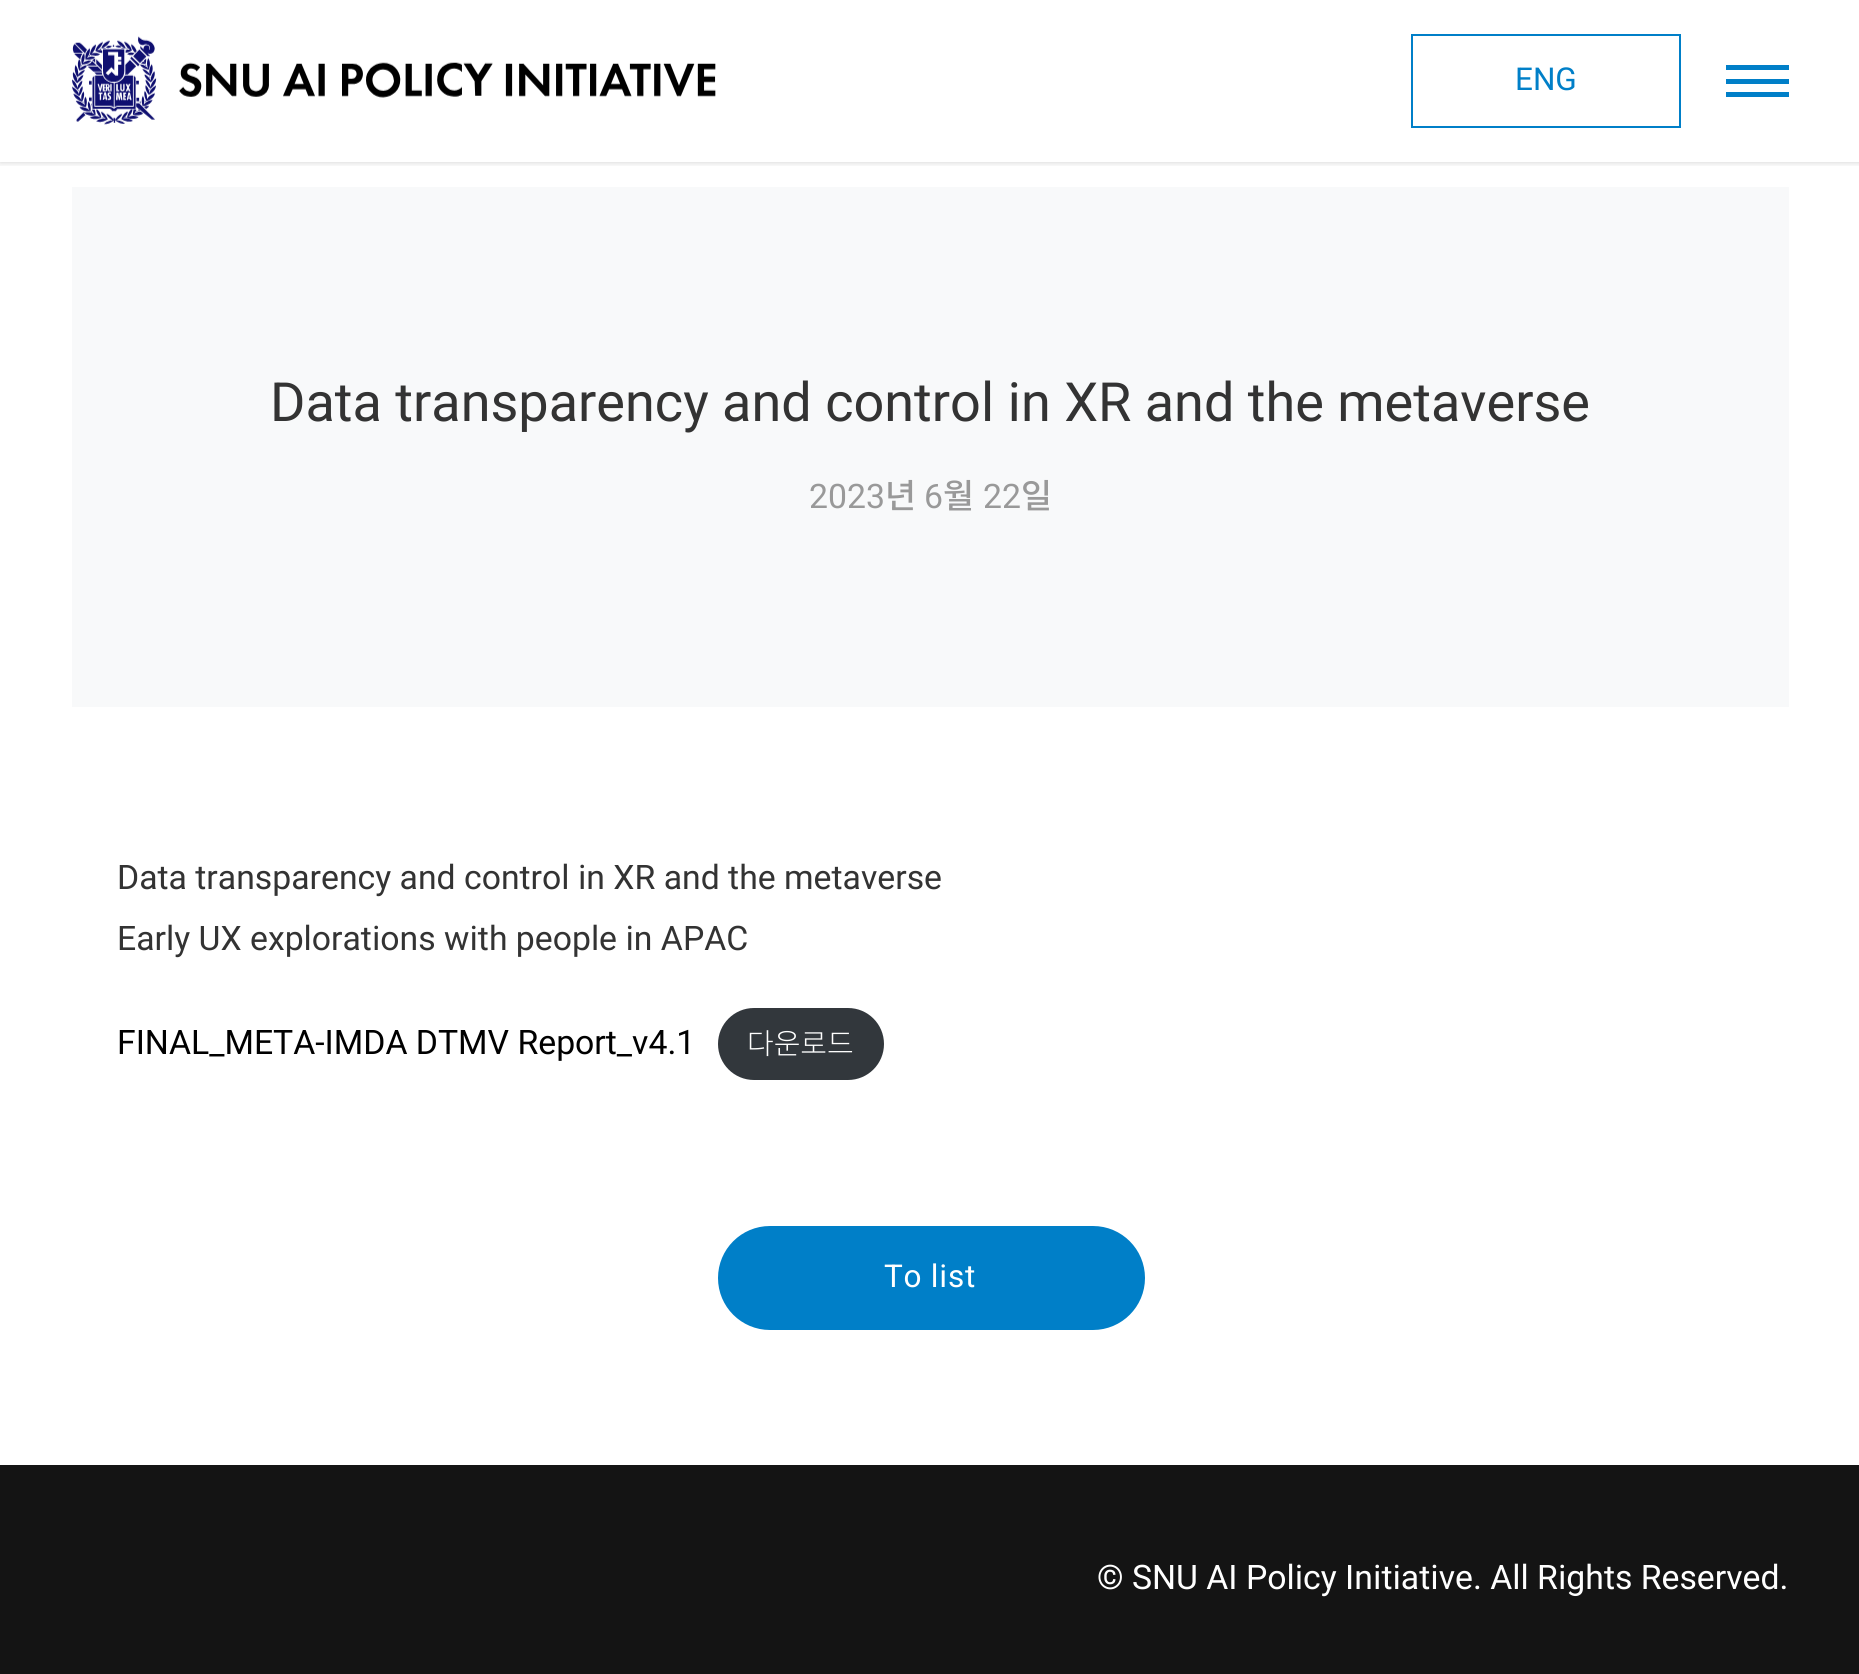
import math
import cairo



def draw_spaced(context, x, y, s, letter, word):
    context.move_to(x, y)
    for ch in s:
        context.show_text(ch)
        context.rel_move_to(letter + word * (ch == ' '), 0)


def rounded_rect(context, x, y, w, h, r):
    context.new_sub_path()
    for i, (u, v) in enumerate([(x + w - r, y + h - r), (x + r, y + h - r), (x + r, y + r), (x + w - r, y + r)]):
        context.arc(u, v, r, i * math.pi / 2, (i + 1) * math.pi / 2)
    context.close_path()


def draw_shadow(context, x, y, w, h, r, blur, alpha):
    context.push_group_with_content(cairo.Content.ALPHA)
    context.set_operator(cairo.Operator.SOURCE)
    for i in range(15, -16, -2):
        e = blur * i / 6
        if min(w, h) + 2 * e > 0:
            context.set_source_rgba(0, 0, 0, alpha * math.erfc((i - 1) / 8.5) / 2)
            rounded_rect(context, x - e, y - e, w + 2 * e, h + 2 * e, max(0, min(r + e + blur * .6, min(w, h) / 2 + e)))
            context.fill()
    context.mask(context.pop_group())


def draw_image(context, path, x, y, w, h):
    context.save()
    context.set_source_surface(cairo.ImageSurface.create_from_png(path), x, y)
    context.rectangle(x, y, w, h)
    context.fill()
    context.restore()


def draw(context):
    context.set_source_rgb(1, 1, 1)
    context.paint()
    context.save()
    context.rectangle(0, 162, 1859, 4)
    context.clip()
    context.set_source_rgb(0, 0, 0)
    draw_shadow(context, 0, 0, 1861, 162, 0, 3.5, 0.2)
    context.restore()
    draw_image(context, "images/1.png", 72, 36, 644, 89)
    context.rectangle(1412, 35, 268, 92)
    context.set_source_rgb(0, 127 / 255, 200 / 255)
    context.stroke()
    context.rectangle(1726, 65, 63, 5)
    context.fill()
    context.rectangle(1726, 79, 63, 5)
    context.fill()
    context.rectangle(1726, 92, 63, 5)
    context.fill()
    context.set_source_rgb(248 / 255, 249 / 255, 250 / 255)
    context.rectangle(72, 187, 1717, 520)
    context.fill()
    context.set_source_rgb(50 / 255, 55 / 255, 60 / 255)
    rounded_rect(context, 718, 1008, 166, 72, 36)
    context.fill()
    context.set_source_rgb(0, 127 / 255, 200 / 255)
    rounded_rect(context, 719, 1227, 425, 102, 51)
    context.fill_preserve()
    context.stroke()
    context.set_source_rgb(20 / 255, 20 / 255, 20 / 255)
    context.rectangle(0, 1465, 1859, 209)
    context.fill()
    context.select_font_face("Heebo")
    context.set_font_size(31.5)
    context.set_source_rgb(0, 127 / 255, 200 / 255)
    context.move_to(1515, 90)
    context.show_text("ENG")
    context.set_font_size(54)
    context.set_source_rgb(51 / 255, 51 / 255, 51 / 255)
    context.move_to(270, 421)
    context.show_text("Data transparency and control in XR and the metaverse")
    context.set_font_size(33.75)
    context.set_source_rgb(153 / 255, 153 / 255, 153 / 255)
    context.move_to(809, 508)
    context.show_text("2023")
    context.select_font_face("Noto Sans KR Medium")
    context.move_to(885, 508)
    context.show_text("년")
    context.select_font_face("Heebo")
    context.move_to(924, 508)
    context.show_text("6")
    context.select_font_face("Noto Sans KR Medium")
    context.move_to(943, 508)
    context.show_text("월")
    context.select_font_face("Heebo")
    context.move_to(983, 508)
    context.show_text("22")
    context.select_font_face("Noto Sans KR Medium")
    context.move_to(1021, 508)
    context.show_text("일")
    context.select_font_face("Heebo")
    context.set_source_rgb(51 / 255, 51 / 255, 51 / 255)
    context.move_to(117, 889)
    context.show_text("Data transparency and control in XR and the metaverse")
    context.move_to(117, 950)
    context.show_text("Early UX explorations with people in APAC")
    context.set_source_rgb(0, 0, 0)
    context.move_to(117, 1054)
    context.show_text("FINAL_META-IMDA DTMV Report_v4.1")
    context.select_font_face("Noto Sans KR Light")
    context.set_font_size(29)
    context.set_source_rgb(1, 1, 1)
    context.move_to(747, 1054)
    context.show_text("다운로드")
    context.select_font_face("Heebo")
    context.set_font_size(31.5)
    draw_spaced(context, 884, 1287, "To list", 0.75, 0)
    context.set_font_size(33.75)
    context.move_to(1097, 1589)
    context.show_text("© SNU AI Policy Initiative. All Rights Reserved.")


surface = cairo.ImageSurface(cairo.Format.RGB24, 1859, 1674)
context = cairo.Context(surface)
options = cairo.FontOptions()
options.set_hint_metrics(cairo.HintMetrics.OFF)
options.set_hint_style(cairo.HintStyle.NONE)
context.set_font_options(options)
context.set_miter_limit(4)
draw(context)
surface.write_to_png("out.png")
